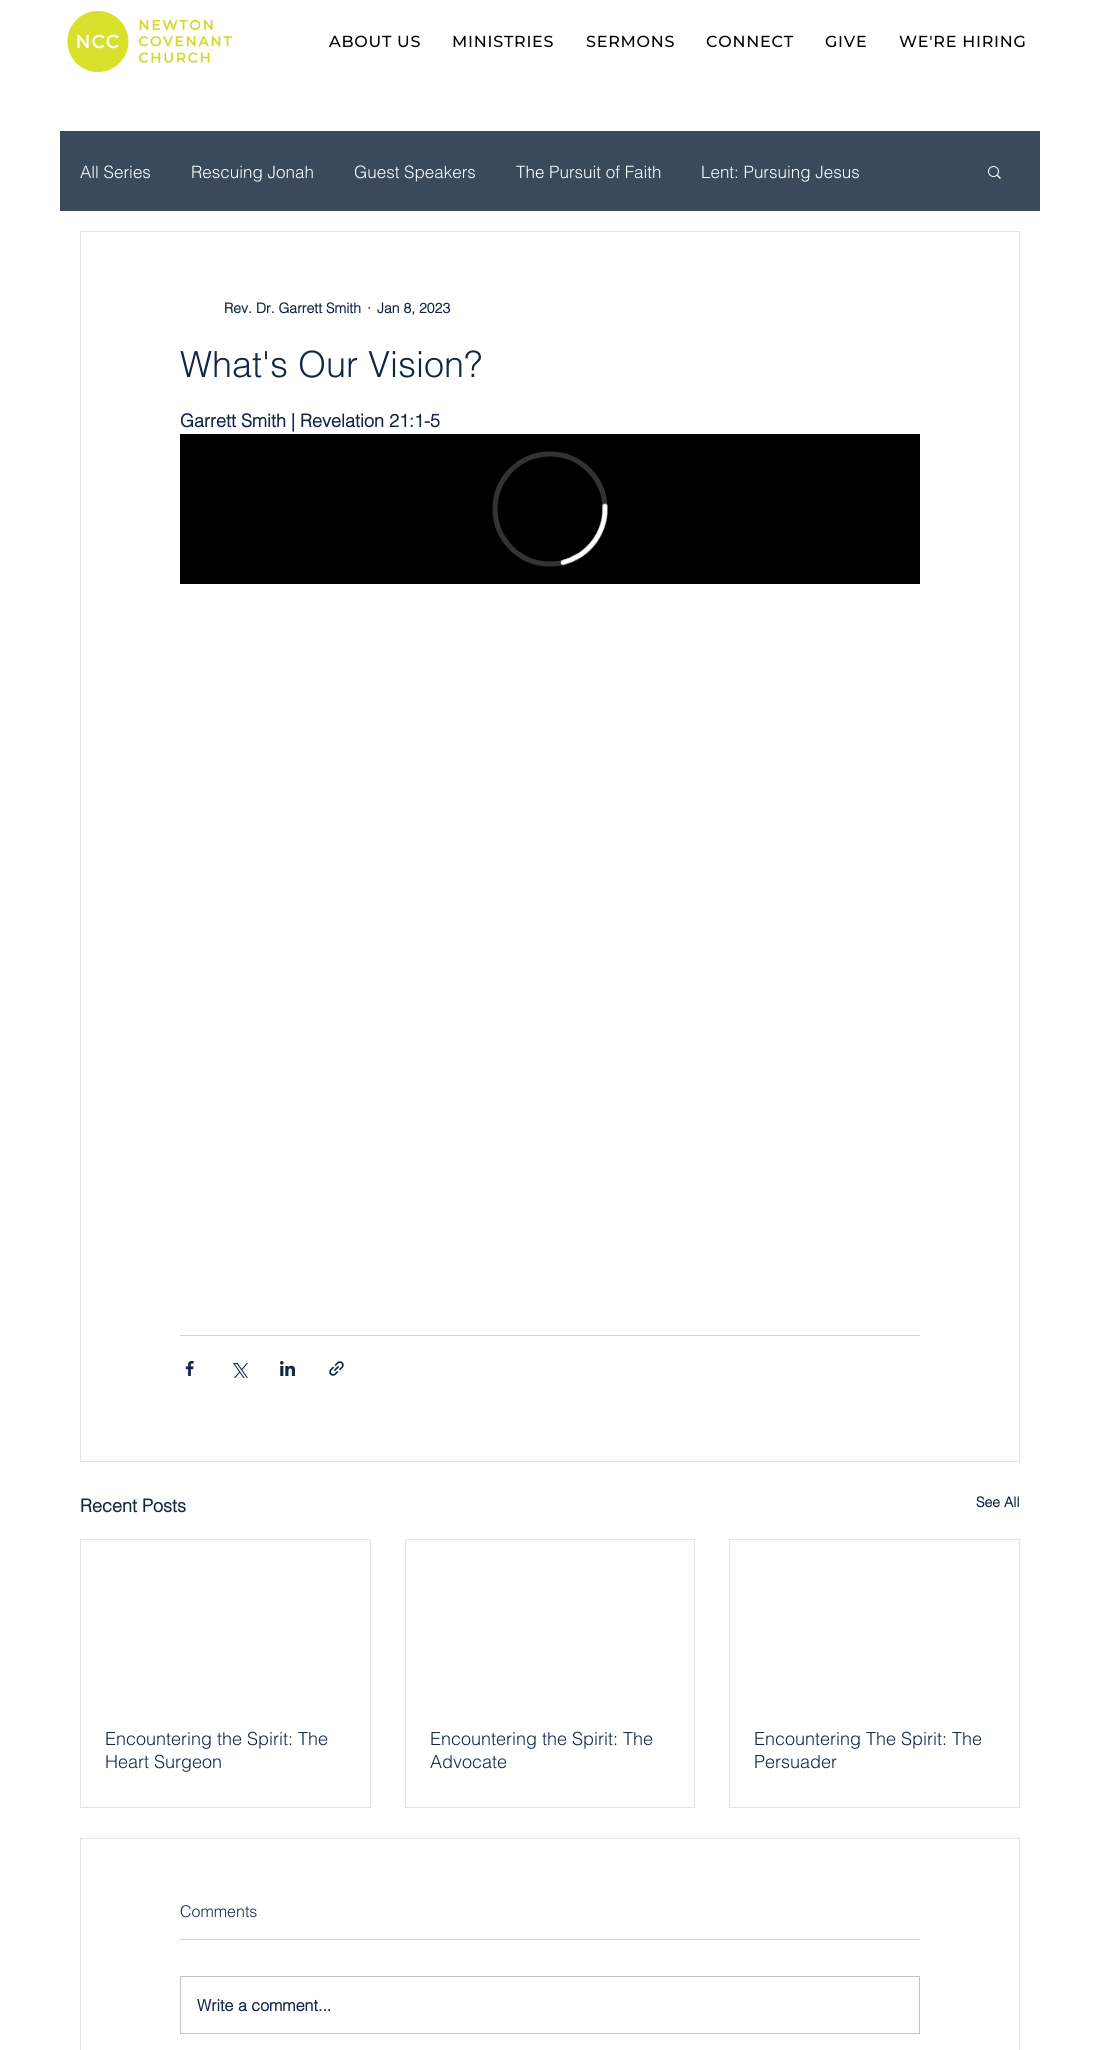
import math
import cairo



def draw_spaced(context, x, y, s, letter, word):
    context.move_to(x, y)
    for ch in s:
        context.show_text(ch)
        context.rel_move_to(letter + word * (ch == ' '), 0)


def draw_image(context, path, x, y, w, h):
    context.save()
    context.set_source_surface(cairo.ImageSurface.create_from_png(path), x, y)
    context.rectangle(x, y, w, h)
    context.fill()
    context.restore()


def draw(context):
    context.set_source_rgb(1, 1, 1)
    context.paint()
    draw_image(context, "images/1.png", 67, 11, 165, 61)
    context.set_source_rgb(59 / 255, 73 / 255, 93 / 255)
    context.rectangle(60, 131, 980, 80)
    context.fill()
    draw_image(context, "images/2.png", 988, 166, 13, 13)
    context.rectangle(80.5, 231.5, 939, 1230)
    context.set_source_rgb(228 / 255, 228 / 255, 228 / 255)
    context.set_line_width(1)
    context.stroke()
    draw_image(context, "images/3.png", 180, 434, 740, 150)
    context.set_source_rgb(208 / 255, 212 / 255, 218 / 255)
    context.rectangle(180, 1335, 740, 1)
    context.fill()
    draw_image(context, "images/4.png", 185, 1361, 9, 15)
    draw_image(context, "images/5.png", 233, 1363, 15, 15)
    draw_image(context, "images/6.png", 280, 1361, 15, 15)
    draw_image(context, "images/7.png", 329, 1361, 15, 15)
    context.rectangle(80.5, 1539.5, 290, 268)
    context.set_source_rgb(228 / 255, 228 / 255, 228 / 255)
    context.stroke()
    context.rectangle(405.5, 1539.5, 289, 268)
    context.stroke()
    context.rectangle(729.5, 1539.5, 290, 268)
    context.stroke()
    context.rectangle(80.5, 1838.5, 939, 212)
    context.stroke()
    context.set_source_rgb(208 / 255, 212 / 255, 218 / 255)
    context.rectangle(180, 1939, 740, 1)
    context.fill()
    context.rectangle(180.5, 1976.5, 739, 57)
    context.set_source_rgb(193 / 255, 193 / 255, 193 / 255)
    context.stroke()
    context.select_font_face("Montserrat Medium")
    context.set_font_size(16)
    context.set_source_rgb(3 / 255, 3 / 255, 3 / 255)
    draw_spaced(context, 329, 47, "ABOUT US", 0.75, 0)
    draw_spaced(context, 452, 47, "MINISTRIES", 0.75, 0)
    draw_spaced(context, 586, 47, "SERMONS", 0.75, 0)
    draw_spaced(context, 706, 47, "CONNECT", 0.75, 0)
    draw_spaced(context, 825, 47, "GIVE", 0.75, 0)
    draw_spaced(context, 899, 47, "WE'RE HIRING", 0.75, 0)
    context.select_font_face("helvetica Light")
    context.set_font_size(17)
    context.set_source_rgb(1, 1, 1)
    context.move_to(80, 178)
    context.show_text("All Series")
    context.move_to(191, 178)
    context.show_text("Rescuing Jonah")
    context.move_to(354, 178)
    context.show_text("Guest Speakers")
    context.move_to(516, 178)
    context.show_text("The Pursuit of Faith")
    context.move_to(701, 178)
    context.show_text("Lent: Pursuing Jesus")
    context.select_font_face("helvetica", cairo.FontSlant.NORMAL, cairo.FontWeight.BOLD)
    context.set_font_size(14)
    context.set_source_rgb(18 / 255, 38 / 255, 69 / 255)
    context.move_to(224, 313)
    context.show_text("Rev. Dr. Garrett Smith")
    context.move_to(367, 313)
    context.show_text("·")
    context.move_to(377, 313)
    context.show_text("Jan 8, 2023")
    context.select_font_face("helvetica Light")
    context.set_font_size(36)
    context.move_to(180, 377)
    context.show_text("What's Our Vision?")
    context.select_font_face("helvetica", cairo.FontSlant.NORMAL, cairo.FontWeight.BOLD)
    context.set_font_size(18)
    context.move_to(180, 427)
    context.show_text("Garrett Smith | Revelation 21:1-5")
    context.move_to(80, 1512)
    context.show_text("Recent Posts")
    context.set_font_size(14)
    context.move_to(976, 1507)
    context.show_text("See All")
    context.select_font_face("helvetica Light")
    context.set_font_size(18)
    context.move_to(105, 1745)
    context.show_text("Encountering the Spirit: The")
    context.move_to(105, 1768)
    context.show_text("Heart Surgeon")
    context.move_to(430, 1745)
    context.show_text("Encountering the Spirit: The")
    context.move_to(430, 1768)
    context.show_text("Advocate")
    context.move_to(754, 1745)
    context.show_text("Encountering The Spirit: The")
    context.move_to(754, 1768)
    context.show_text("Persuader")
    context.set_font_size(16)
    context.move_to(180, 1917)
    context.show_text("Comments")
    context.select_font_face("helvetica", cairo.FontSlant.NORMAL, cairo.FontWeight.BOLD)
    context.move_to(197, 2011)
    context.show_text("Write a comment...")


surface = cairo.ImageSurface(cairo.Format.RGB24, 1100, 2050)
context = cairo.Context(surface)
options = cairo.FontOptions()
options.set_hint_metrics(cairo.HintMetrics.OFF)
options.set_hint_style(cairo.HintStyle.NONE)
context.set_font_options(options)
context.set_miter_limit(4)
draw(context)
surface.write_to_png("out.png")
